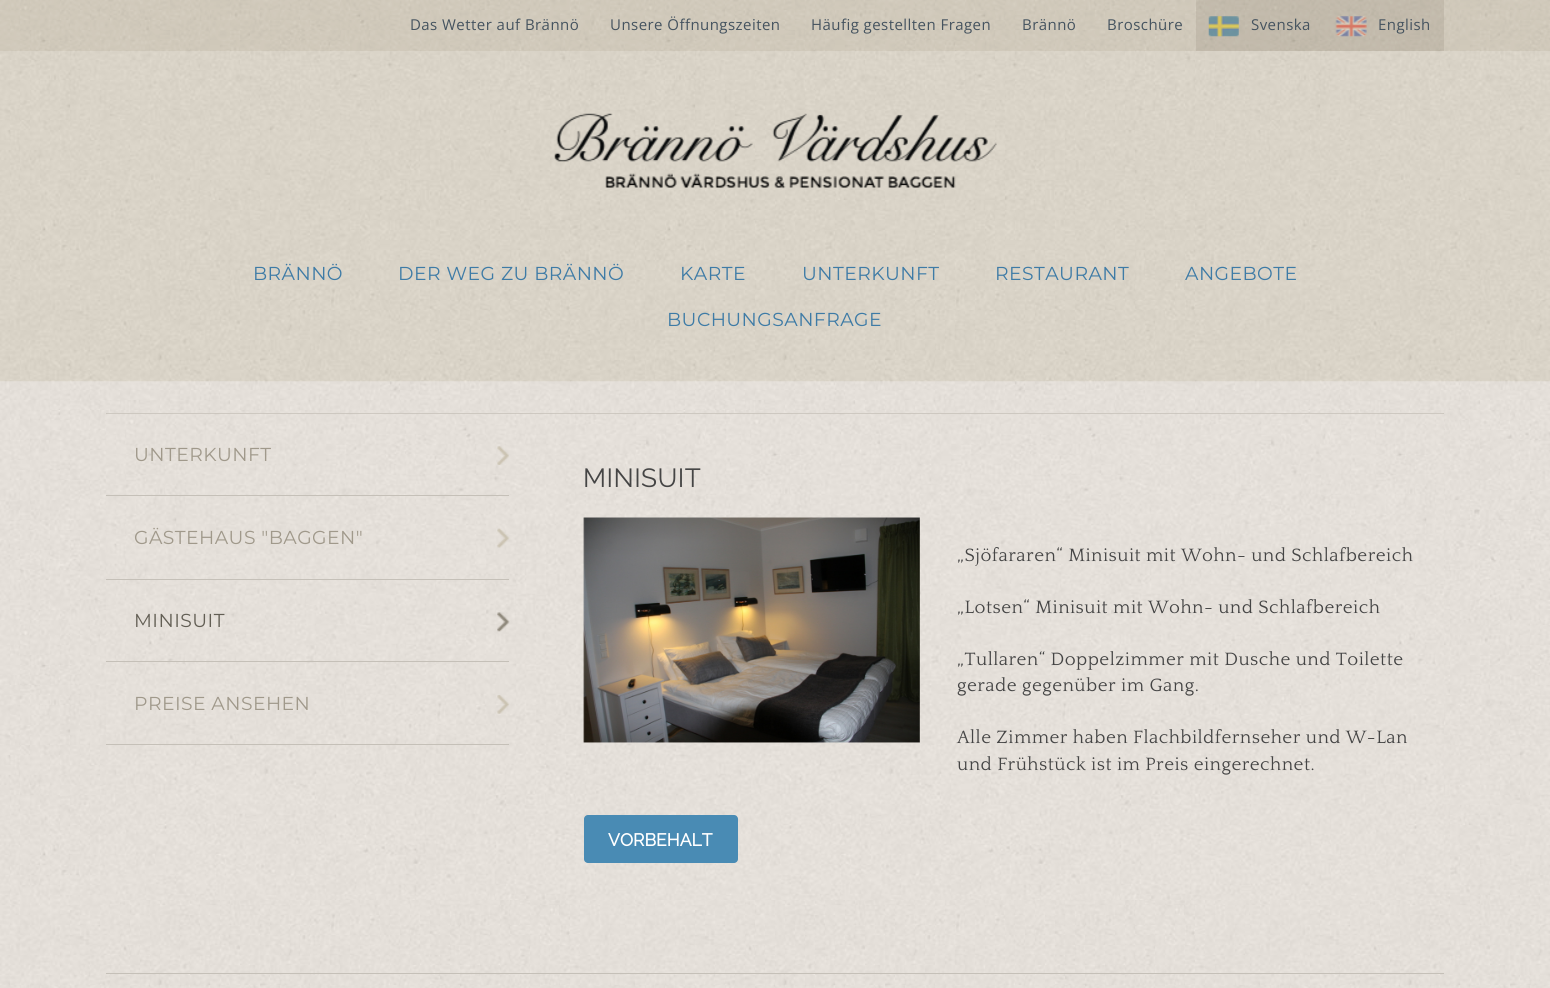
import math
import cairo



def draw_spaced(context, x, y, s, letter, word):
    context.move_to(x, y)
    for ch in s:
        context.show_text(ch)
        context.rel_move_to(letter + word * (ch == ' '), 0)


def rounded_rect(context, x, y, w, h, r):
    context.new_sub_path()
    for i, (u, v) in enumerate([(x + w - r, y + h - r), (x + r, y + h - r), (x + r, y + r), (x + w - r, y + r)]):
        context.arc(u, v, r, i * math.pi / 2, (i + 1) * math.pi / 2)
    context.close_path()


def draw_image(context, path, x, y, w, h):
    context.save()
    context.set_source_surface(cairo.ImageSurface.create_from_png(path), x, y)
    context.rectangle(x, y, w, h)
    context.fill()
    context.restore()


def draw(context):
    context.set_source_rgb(1, 1, 1)
    context.paint()
    draw_image(context, "images/1.png", 0, 381, 1550, 607)
    draw_image(context, "images/2.png", 0, 0, 1550, 382)
    context.set_source_rgba(153 / 255, 143 / 255, 117 / 255, 0.15)
    context.rectangle(0, 0, 1550, 51)
    context.fill()
    context.set_source_rgba(61 / 255, 50 / 255, 34 / 255, 0.1)
    context.rectangle(1196, 0, 248, 51)
    context.fill()
    draw_image(context, "images/3.png", 1208, 16, 31, 21)
    draw_image(context, "images/4.png", 1335, 16, 32, 21)
    draw_image(context, "images/5.png", 554, 113, 443, 76)
    context.set_source_rgb(197 / 255, 192 / 255, 184 / 255)
    context.rectangle(106, 413, 1338, 1)
    context.fill()
    context.rectangle(106, 973, 1338, 1)
    context.fill()
    draw_image(context, "images/6.png", 106, 413, 1338, 487)
    context.rectangle(106, 495, 403, 1)
    context.fill()
    draw_image(context, "images/7.png", 497, 446, 12, 19)
    context.rectangle(106, 579, 403, 1)
    context.fill()
    draw_image(context, "images/8.png", 497, 528, 13, 20)
    context.rectangle(106, 661, 403, 1)
    context.fill()
    draw_image(context, "images/9.png", 497, 612, 13, 20)
    context.rectangle(106, 744, 403, 1)
    context.fill()
    draw_image(context, "images/10.png", 497, 695, 13, 19)
    draw_image(context, "images/11.png", 583, 517, 337, 226)
    context.set_source_rgb(73 / 255, 139 / 255, 180 / 255)
    rounded_rect(context, 584, 815, 154, 48, 4)
    context.fill()
    context.select_font_face("Open Sans")
    context.set_font_size(15)
    context.set_source_rgb(69 / 255, 83 / 255, 95 / 255)
    draw_spaced(context, 410, 30, "Das Wetter auf Brännö", 0.45, 0)
    draw_spaced(context, 610, 30, "Unsere Öffnungszeiten", 0.45, 0)
    draw_spaced(context, 811, 30, "Häufig gestellten Fragen", 0.45, 0)
    draw_spaced(context, 1022, 30, "Brännö", 0.45, 0)
    draw_spaced(context, 1107, 30, "Broschüre", 0.45, 0)
    draw_spaced(context, 1251, 30, "Svenska", 0.45, 0)
    draw_spaced(context, 1378, 30, "English", 0.45, 0)
    context.select_font_face("Montserrat")
    context.set_font_size(18.75)
    context.set_source_rgb(62 / 255, 123 / 255, 166 / 255)
    draw_spaced(context, 253, 280, "BRÄNNÖ", 0.45, 0)
    draw_spaced(context, 398, 280, "DER WEG ZU BRÄNNÖ", 0.45, 0)
    draw_spaced(context, 680, 280, "KARTE", 0.45, 0)
    draw_spaced(context, 802, 280, "UNTERKUNFT", 0.45, 0)
    draw_spaced(context, 995, 280, "RESTAURANT", 0.45, 0)
    draw_spaced(context, 1185, 280, "ANGEBOTE", 0.45, 0)
    draw_spaced(context, 667, 326, "BUCHUNGSANFRAGE", 0.45, 0)
    context.set_source_rgb(160 / 255, 153 / 255, 139 / 255)
    draw_spaced(context, 134, 461, "UNTERKUNFT", 0.45, 0)
    draw_spaced(context, 134, 544, "GÄSTEHAUS \"BAGGEN\"", 0.45, 0)
    context.set_source_rgb(98 / 255, 94 / 255, 84 / 255)
    draw_spaced(context, 134, 627, "MINISUIT", 0.45, 0)
    context.set_source_rgb(160 / 255, 153 / 255, 139 / 255)
    draw_spaced(context, 134, 710, "PREISE ANSEHEN", 0.45, 0)
    context.select_font_face("Raleway Thin")
    context.set_font_size(26.25)
    context.set_source_rgb(69 / 255, 69 / 255, 69 / 255)
    draw_spaced(context, 583, 487, "MINISUIT", 0.45, 0)
    context.select_font_face("Quattrocento")
    context.set_font_size(18.75)
    draw_spaced(context, 957, 561, "„Sjöfararen“ Minisuit mit Wohn- und Schlafbereich", 0.45, 0)
    draw_spaced(context, 957, 613, "„Lotsen“ Minisuit mit Wohn- und Schlafbereich", 0.45, 0)
    draw_spaced(context, 957, 665, "„Tullaren“ Doppelzimmer mit Dusche und Toilette", 0.45, 0)
    draw_spaced(context, 957, 691, "gerade gegenüber im Gang.", 0.45, 0)
    draw_spaced(context, 957, 743, "Alle Zimmer haben Flachbildfernseher und W-Lan", 0.45, 0)
    draw_spaced(context, 957, 770, "und Frühstück ist im Preis eingerechnet.", 0.45, 0)
    context.select_font_face("Raleway", cairo.FontSlant.NORMAL, cairo.FontWeight.BOLD)
    context.set_font_size(17.5)
    context.set_source_rgb(1, 1, 1)
    context.move_to(608, 846)
    context.show_text("VORBEHALT")


surface = cairo.ImageSurface(cairo.Format.RGB24, 1550, 988)
context = cairo.Context(surface)
options = cairo.FontOptions()
options.set_hint_metrics(cairo.HintMetrics.OFF)
options.set_hint_style(cairo.HintStyle.NONE)
context.set_font_options(options)
context.set_miter_limit(4)
draw(context)
surface.write_to_png("out.png")
